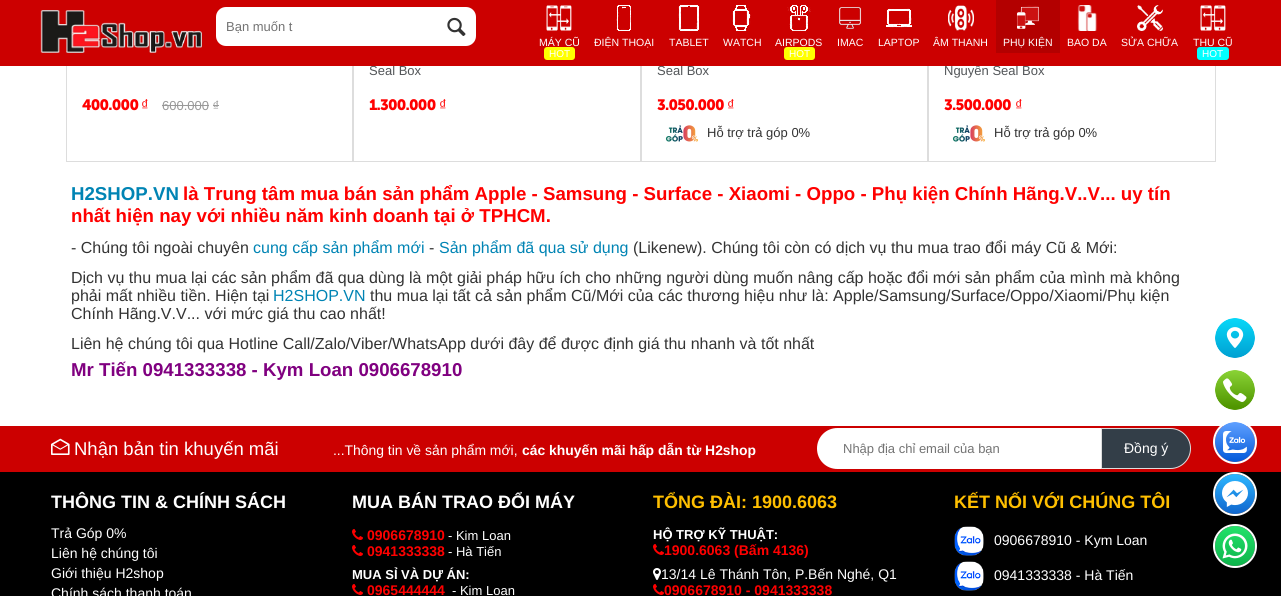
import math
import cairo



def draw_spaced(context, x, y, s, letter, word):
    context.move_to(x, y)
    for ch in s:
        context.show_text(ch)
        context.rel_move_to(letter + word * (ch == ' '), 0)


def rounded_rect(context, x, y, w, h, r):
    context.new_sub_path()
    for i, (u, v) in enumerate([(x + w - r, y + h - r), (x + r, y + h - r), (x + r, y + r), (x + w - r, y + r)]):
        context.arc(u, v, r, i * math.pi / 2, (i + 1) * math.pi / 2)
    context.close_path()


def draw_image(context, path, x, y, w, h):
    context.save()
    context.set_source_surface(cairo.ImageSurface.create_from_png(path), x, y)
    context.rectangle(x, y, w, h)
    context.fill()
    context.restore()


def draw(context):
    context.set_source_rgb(1, 1, 1)
    context.paint()
    context.set_source_rgb(221 / 255, 221 / 255, 221 / 255)
    context.rectangle(66, 66, 1, 96)
    context.fill()
    context.rectangle(352, 66, 2, 96)
    context.fill()
    context.rectangle(67, 161, 286, 1)
    context.fill()
    context.set_source_rgb(153 / 255, 153 / 255, 153 / 255)
    context.rectangle(162, 105, 47, 1)
    context.fill()
    context.rectangle(213, 105, 6, 1)
    context.fill()
    context.set_source_rgb(221 / 255, 221 / 255, 221 / 255)
    context.rectangle(640, 66, 2, 96)
    context.fill()
    context.rectangle(354, 161, 287, 1)
    context.fill()
    context.rectangle(927, 66, 2, 96)
    context.fill()
    context.rectangle(642, 161, 286, 1)
    context.fill()
    draw_image(context, "images/15.png", 665, 125, 33, 17)
    context.rectangle(1215, 66, 1, 96)
    context.fill()
    context.rectangle(929, 161, 287, 1)
    context.fill()
    draw_image(context, "images/15.png", 952, 125, 33, 17)
    context.set_source_rgb(204 / 255, 0, 0)
    context.rectangle(0, 426, 1281, 46)
    context.fill()
    draw_image(context, "images/16.png", 51, 438, 19, 17)
    context.set_source_rgb(1, 1, 1)
    context.new_path()
    context.move_to(837.5, 428)
    context.line_to(1101, 428)
    context.line_to(1101, 469)
    context.line_to(837.5, 469)
    context.curve_to(826, 469, 817, 460, 817, 448.5)
    context.curve_to(817, 437, 826, 428, 837.5, 428)
    context.close_path()
    context.fill()
    context.set_source_rgb(51 / 255, 62 / 255, 72 / 255)
    context.new_path()
    context.move_to(1101.5, 428.5)
    context.line_to(1170.5, 428.5)
    context.curve_to(1181.5, 428.5, 1190.5, 437.5, 1190.5, 448.5)
    context.curve_to(1190.5, 459.5, 1181.5, 468.5, 1170.5, 468.5)
    context.line_to(1101.5, 468.5)
    context.close_path()
    context.fill_preserve()
    context.set_source_rgb(221 / 255, 221 / 255, 221 / 255)
    context.set_line_width(1)
    context.stroke()
    context.set_source_rgb(0, 0, 0)
    context.rectangle(0, 472, 1281, 124)
    context.fill()
    draw_image(context, "images/17.png", 352, 529, 11, 11)
    draw_image(context, "images/17.png", 352, 545, 11, 11)
    draw_image(context, "images/17.png", 352, 584, 11, 11)
    draw_image(context, "images/17.png", 653, 544, 11, 11)
    draw_image(context, "images/18.png", 653, 568, 8, 12)
    draw_image(context, "images/17.png", 653, 584, 11, 11)
    draw_image(context, "images/19.png", 954, 526, 30, 30)
    draw_image(context, "images/20.png", 954, 561, 30, 30)
    draw_image(context, "images/21.png", 1215, 318, 40, 40)
    context.arc(1235, 338, 21, 0, 2 * math.pi)
    context.set_source_rgb(1, 1, 1)
    context.set_line_width(2)
    context.stroke()
    draw_image(context, "images/22.png", 1215, 370, 40, 40)
    context.arc(1235, 390, 21, 0, 2 * math.pi)
    context.stroke()
    draw_image(context, "images/23.png", 1215, 422, 40, 40)
    context.arc(1235, 442, 21, 0, 2 * math.pi)
    context.stroke()
    draw_image(context, "images/24.png", 1215, 474, 40, 40)
    context.arc(1235, 494, 21, 0, 2 * math.pi)
    context.stroke()
    draw_image(context, "images/25.png", 1215, 526, 40, 40)
    context.arc(1235, 546, 21, 0, 2 * math.pi)
    context.stroke()
    context.select_font_face("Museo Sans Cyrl", cairo.FontSlant.NORMAL, cairo.FontWeight.BOLD)
    context.set_font_size(15)
    context.set_source_rgb(1, 0, 0)
    draw_spaced(context, 82, 110, "400.000", -0.75, 0)
    context.select_font_face("Liberation Sans")
    draw_spaced(context, 141, 110, "₫", -0.75, 0)
    context.set_font_size(13)
    context.set_source_rgb(153 / 255, 153 / 255, 153 / 255)
    context.move_to(162, 110)
    context.show_text("600.000 ₫")
    context.set_source_rgb(82 / 255, 85 / 255, 88 / 255)
    context.move_to(369, 75)
    context.show_text("Seal Box")
    context.select_font_face("Museo Sans Cyrl", cairo.FontSlant.NORMAL, cairo.FontWeight.BOLD)
    context.set_font_size(15)
    context.set_source_rgb(1, 0, 0)
    draw_spaced(context, 369, 110, "1.300.000", -0.75, 0)
    context.select_font_face("Liberation Sans")
    draw_spaced(context, 439, 110, "₫", -0.75, 0)
    context.set_font_size(13)
    context.set_source_rgb(82 / 255, 85 / 255, 88 / 255)
    context.move_to(657, 75)
    context.show_text("Seal Box")
    context.select_font_face("Museo Sans Cyrl", cairo.FontSlant.NORMAL, cairo.FontWeight.BOLD)
    context.set_font_size(15)
    context.set_source_rgb(1, 0, 0)
    draw_spaced(context, 657, 110, "3.050.000", -0.75, 0)
    context.select_font_face("Liberation Sans")
    draw_spaced(context, 727, 110, "₫", -0.75, 0)
    context.set_font_size(13)
    context.set_source_rgb(51 / 255, 51 / 255, 51 / 255)
    context.move_to(707, 137)
    context.show_text("Hỗ trợ trả góp 0%")
    context.set_source_rgb(82 / 255, 85 / 255, 88 / 255)
    context.move_to(944, 75)
    context.show_text("Nguyên Seal Box")
    context.set_source_rgb(204 / 255, 0, 0)
    context.rectangle(0, 0, 1281, 66)
    context.fill()
    context.set_source_rgb(0, 1, 1)
    rounded_rect(context, 1197, 47, 32, 13, 3)
    context.fill()
    context.set_font_size(10)
    context.set_source_rgb(1, 1, 1)
    context.move_to(1202, 57)
    context.show_text("HOT")
    context.set_font_size(10.5)
    context.move_to(1193, 46)
    context.show_text("THU CŨ")
    draw_image(context, "images/14.png", 1200, 5, 26, 26)
    context.move_to(1121, 46)
    context.show_text("SỬA CHỮA")
    draw_image(context, "images/13.png", 1137, 5, 26, 26)
    context.move_to(1067, 46)
    context.show_text("BAO DA")
    draw_image(context, "images/12.png", 1077, 5, 21, 26)
    context.set_source_rgb(179 / 255, 0, 0)
    context.rectangle(996, 0, 64, 53)
    context.fill()
    context.set_source_rgb(1, 1, 1)
    context.move_to(1003, 46)
    context.show_text("PHỤ KIỆN")
    draw_image(context, "images/11.png", 1016, 5, 23, 24)
    context.move_to(933, 46)
    context.show_text("ÂM THANH")
    draw_image(context, "images/10.png", 948, 5, 26, 26)
    context.move_to(878, 46)
    context.show_text("LAPTOP")
    draw_image(context, "images/9.png", 886, 8, 26, 20)
    context.move_to(837, 46)
    context.show_text("IMAC")
    draw_image(context, "images/8.png", 839, 7, 23, 22)
    context.set_source_rgb(1, 1, 0)
    rounded_rect(context, 784, 47, 31, 13, 3)
    context.fill()
    context.set_font_size(10)
    context.set_source_rgb(1, 1, 1)
    context.move_to(789, 57)
    context.show_text("HOT")
    context.set_font_size(10.5)
    context.move_to(775, 46)
    context.show_text("AIRPODS")
    draw_image(context, "images/7.png", 787, 5, 24, 26)
    context.move_to(723, 46)
    context.show_text("WATCH")
    draw_image(context, "images/6.png", 732, 5, 19, 26)
    context.move_to(669, 46)
    context.show_text("TABLET")
    draw_image(context, "images/5.png", 678, 5, 22, 26)
    context.move_to(594, 46)
    context.show_text("ĐIỆN THOẠI")
    draw_image(context, "images/4.png", 616, 5, 15, 26)
    context.set_source_rgb(1, 1, 0)
    rounded_rect(context, 544, 47, 31, 13, 3)
    context.fill()
    context.set_font_size(10)
    context.set_source_rgb(1, 1, 1)
    context.move_to(549, 57)
    context.show_text("HOT")
    context.set_font_size(10.5)
    context.move_to(539, 46)
    context.show_text("MÁY CŨ")
    draw_image(context, "images/3.png", 546, 5, 26, 26)
    rounded_rect(context, 216, 7, 256, 39, 10)
    context.fill()
    rounded_rect(context, 437, 7, 39, 39, 10)
    context.fill()
    draw_image(context, "images/2.png", 447, 17, 19, 19)
    context.set_font_size(13)
    context.set_source_rgb(115 / 255, 115 / 255, 115 / 255)
    context.move_to(226, 31)
    context.show_text("Bạn muốn t")
    draw_image(context, "images/1.png", 40, 10, 162, 43)
    context.select_font_face("Museo Sans Cyrl", cairo.FontSlant.NORMAL, cairo.FontWeight.BOLD)
    context.set_font_size(15)
    context.set_source_rgb(1, 0, 0)
    draw_spaced(context, 944, 110, "3.500.000", -0.75, 0)
    context.select_font_face("Liberation Sans")
    draw_spaced(context, 1015, 110, "₫", -0.75, 0)
    context.set_font_size(13)
    context.set_source_rgb(51 / 255, 51 / 255, 51 / 255)
    context.move_to(994, 137)
    context.show_text("Hỗ trợ trả góp 0%")
    context.select_font_face("Liberation Sans", cairo.FontSlant.NORMAL, cairo.FontWeight.BOLD)
    context.set_font_size(18.67)
    context.set_source_rgb(0, 132 / 255, 180 / 255)
    context.move_to(71, 200)
    context.show_text("H2SHOP.VN")
    context.set_source_rgb(1, 0, 0)
    context.move_to(183, 200)
    context.show_text("là Trung tâm mua bán sản phẩm Apple - Samsung - Surface - Xiaomi - Oppo - Phụ kiện Chính Hãng.V..V... uy tín")
    context.move_to(71, 222)
    context.show_text("nhất hiện nay với nhiều năm kinh doanh tại ở TPHCM.")
    context.select_font_face("Liberation Sans")
    context.set_font_size(16)
    context.set_source_rgb(51 / 255, 51 / 255, 51 / 255)
    context.move_to(71, 253)
    context.show_text("- Chúng tôi ngoài chuyên")
    context.set_source_rgb(0, 132 / 255, 180 / 255)
    context.move_to(253, 253)
    context.show_text("cung cấp sản phẩm mới")
    context.set_source_rgb(51 / 255, 51 / 255, 51 / 255)
    context.move_to(429, 253)
    context.show_text("-")
    context.set_source_rgb(0, 132 / 255, 180 / 255)
    context.move_to(439, 253)
    context.show_text("Sản phẩm đã qua sử dụng")
    context.set_source_rgb(51 / 255, 51 / 255, 51 / 255)
    context.move_to(633, 253)
    context.show_text("(Likenew). Chúng tôi còn có dịch vụ thu mua trao đổi máy Cũ & Mới:")
    context.move_to(71, 283)
    context.show_text("Dịch vụ thu mua lại các sản phẩm đã qua dùng là một giải pháp hữu ích cho những người dùng muốn nâng cấp hoặc đổi mới sản phẩm của mình mà không")
    context.move_to(71, 301)
    context.show_text("phải mất nhiều tiền. Hiện tại")
    context.set_source_rgb(0, 132 / 255, 180 / 255)
    context.move_to(273, 301)
    context.show_text("H2SHOP.VN")
    context.set_source_rgb(51 / 255, 51 / 255, 51 / 255)
    context.move_to(370, 301)
    context.show_text("thu mua lại tất cả sản phẩm Cũ/Mới của các thương hiệu như là: Apple/Samsung/Surface/Oppo/Xiaomi/Phụ kiện")
    context.move_to(71, 319)
    context.show_text("Chính Hãng.V.V... với mức giá thu cao nhất!")
    context.move_to(71, 349)
    context.show_text("Liên hệ chúng tôi qua Hotline Call/Zalo/Viber/WhatsApp dưới đây để được định giá thu nhanh và tốt nhất")
    context.select_font_face("Liberation Sans", cairo.FontSlant.NORMAL, cairo.FontWeight.BOLD)
    context.set_font_size(18.67)
    context.set_source_rgb(128 / 255, 0, 128 / 255)
    context.move_to(71, 376)
    context.show_text("Mr Tiến 0941333338 - Kym Loan 0906678910")
    context.select_font_face("Liberation Sans")
    context.set_font_size(18.5)
    context.set_source_rgb(1, 1, 1)
    context.move_to(74, 455)
    context.show_text("Nhận bản tin khuyến mãi")
    context.set_font_size(13.9)
    context.move_to(333, 455)
    context.show_text("...Thông tin về sản phẩm mới,")
    context.select_font_face("Liberation Sans", cairo.FontSlant.NORMAL, cairo.FontWeight.BOLD)
    context.move_to(522, 455)
    context.show_text("các khuyến mãi hấp dẫn từ H2shop")
    context.select_font_face("Liberation Sans")
    context.set_font_size(13)
    context.set_source_rgb(115 / 255, 115 / 255, 115 / 255)
    context.move_to(843, 453)
    context.show_text("Nhập địa chỉ email của bạn")
    context.set_font_size(14)
    context.set_source_rgb(1, 1, 1)
    context.move_to(1124, 453)
    context.show_text("Đồng ý")
    context.select_font_face("Liberation Sans", cairo.FontSlant.NORMAL, cairo.FontWeight.BOLD)
    context.set_font_size(18)
    context.move_to(51, 508)
    context.show_text("THÔNG TIN & CHÍNH SÁCH")
    context.select_font_face("Liberation Sans")
    context.set_font_size(14)
    context.move_to(51, 538)
    context.show_text("Trả Góp 0%")
    context.move_to(51, 558)
    context.show_text("Liên hệ chúng tôi")
    context.move_to(51, 578)
    context.show_text("Giới thiệu H2shop")
    context.move_to(51, 598)
    context.show_text("Chính sách thanh toán")
    context.select_font_face("Liberation Sans", cairo.FontSlant.NORMAL, cairo.FontWeight.BOLD)
    context.set_font_size(18)
    context.move_to(352, 508)
    context.show_text("MUA BÁN TRAO ĐỔI MÁY")
    context.set_font_size(14)
    context.set_source_rgb(1, 0, 0)
    context.move_to(367, 540)
    context.show_text("0906678910")
    context.select_font_face("Liberation Sans")
    context.set_font_size(13)
    context.set_source_rgb(1, 1, 1)
    context.move_to(448, 540)
    context.show_text("- Kim Loan")
    context.select_font_face("Liberation Sans", cairo.FontSlant.NORMAL, cairo.FontWeight.BOLD)
    context.set_font_size(14)
    context.set_source_rgb(1, 0, 0)
    context.move_to(367, 556)
    context.show_text("0941333338")
    context.select_font_face("Liberation Sans")
    context.set_font_size(13)
    context.set_source_rgb(1, 1, 1)
    context.move_to(448, 556)
    context.show_text("- Hà Tiến")
    context.select_font_face("Liberation Sans", cairo.FontSlant.NORMAL, cairo.FontWeight.BOLD)
    context.move_to(352, 579)
    context.show_text("MUA SỈ VÀ DỰ ÁN:")
    context.set_font_size(14)
    context.set_source_rgb(1, 0, 0)
    context.move_to(367, 595)
    context.show_text("0965444444")
    context.select_font_face("Liberation Sans")
    context.set_font_size(13)
    context.set_source_rgb(1, 1, 1)
    context.move_to(452, 595)
    context.show_text("- Kim Loan")
    context.select_font_face("Liberation Sans", cairo.FontSlant.NORMAL, cairo.FontWeight.BOLD)
    context.set_font_size(18)
    context.set_source_rgb(1, 191 / 255, 0)
    context.move_to(653, 508)
    context.show_text("TỔNG ĐÀI: 1900.6063")
    context.set_font_size(13)
    context.set_source_rgb(1, 1, 1)
    context.move_to(653, 539)
    context.show_text("HỘ TRỢ KỸ THUẬT:")
    context.set_font_size(14)
    context.set_source_rgb(1, 0, 0)
    context.move_to(664, 555)
    context.show_text("1900.6063 (Bấm 4136)")
    context.select_font_face("Liberation Sans")
    context.set_source_rgb(1, 1, 1)
    context.move_to(661, 579)
    context.show_text("13/14 Lê Thánh Tôn, P.Bến Nghé, Q1")
    context.select_font_face("Liberation Sans", cairo.FontSlant.NORMAL, cairo.FontWeight.BOLD)
    context.set_source_rgb(1, 0, 0)
    context.move_to(664, 595)
    context.show_text("0906678910 - 0941333338")
    context.set_font_size(18)
    context.set_source_rgb(1, 191 / 255, 0)
    context.move_to(954, 508)
    context.show_text("KẾT NỐI VỚI CHÚNG TÔI")
    context.select_font_face("Liberation Sans")
    context.set_font_size(14)
    context.set_source_rgb(1, 1, 1)
    context.move_to(994, 545)
    context.show_text("0906678910 - Kym Loan")
    context.move_to(994, 580)
    context.show_text("0941333338 - Hà Tiến")


surface = cairo.ImageSurface(cairo.Format.RGB24, 1281, 596)
context = cairo.Context(surface)
options = cairo.FontOptions()
options.set_hint_metrics(cairo.HintMetrics.OFF)
options.set_hint_style(cairo.HintStyle.NONE)
context.set_font_options(options)
context.set_miter_limit(4)
draw(context)
surface.write_to_png("out.png")
